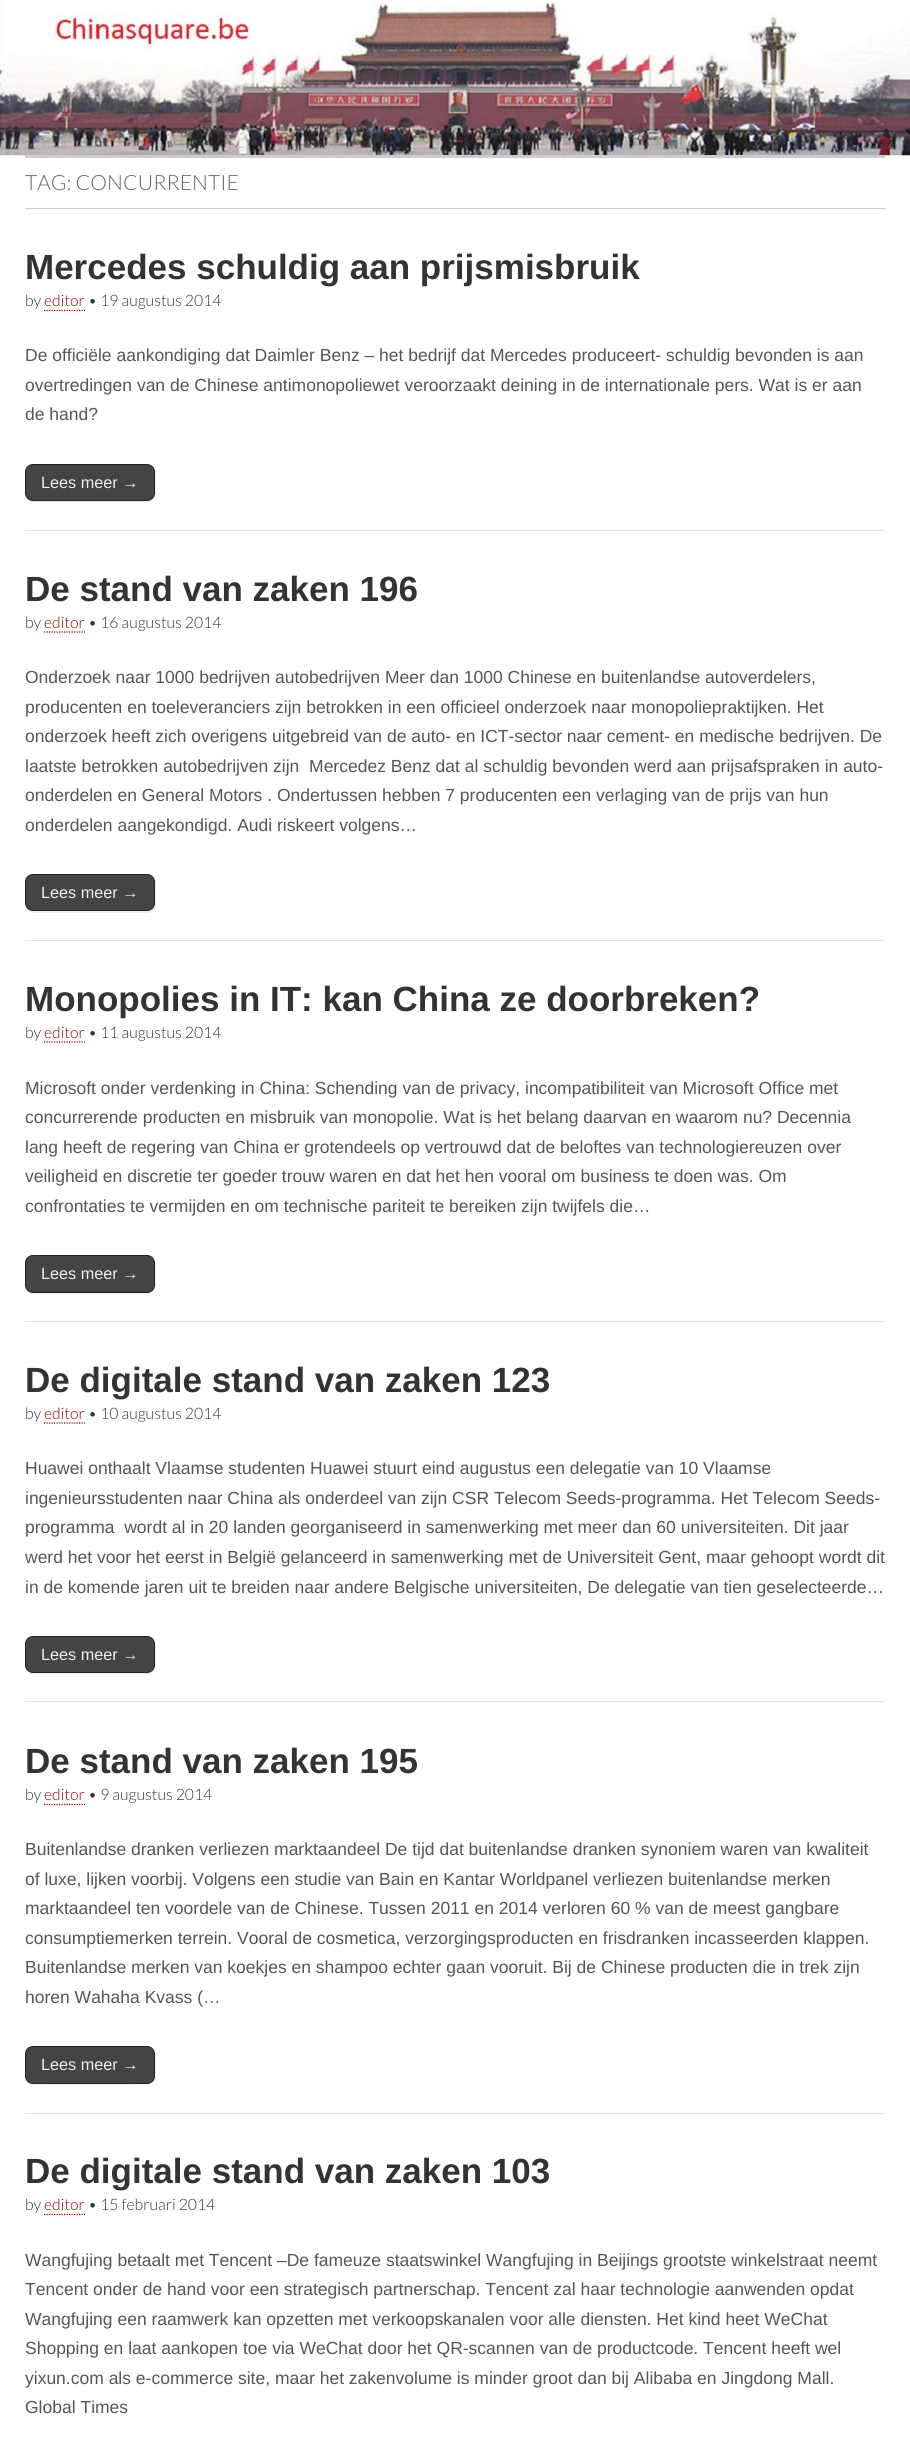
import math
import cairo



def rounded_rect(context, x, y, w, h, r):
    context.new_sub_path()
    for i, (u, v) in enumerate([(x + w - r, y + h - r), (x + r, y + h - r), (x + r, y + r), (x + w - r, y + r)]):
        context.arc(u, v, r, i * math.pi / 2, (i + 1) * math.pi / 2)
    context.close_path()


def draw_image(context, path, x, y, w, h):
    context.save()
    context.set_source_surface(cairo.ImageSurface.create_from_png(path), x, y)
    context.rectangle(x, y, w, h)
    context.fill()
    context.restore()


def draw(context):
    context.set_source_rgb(1, 1, 1)
    context.paint()
    draw_image(context, "images/1.png", 0, 1, 910, 155)
    context.set_source_rgb(204 / 255, 204 / 255, 204 / 255)
    context.rectangle(25, 155, 860, 3)
    context.fill()
    context.rectangle(25, 208, 860, 1)
    context.fill()
    context.new_path()
    context.move_to(44, 310.5)
    context.line_to(85, 310.5)
    context.set_source_rgb(153 / 255, 0, 0)
    context.set_line_width(1.2)
    context.set_dash([1.25, 1.25])
    context.stroke()
    context.set_source_rgb(226 / 255, 226 / 255, 226 / 255)
    context.rectangle(25, 530, 860, 1)
    context.fill()
    context.set_source_rgb(238 / 255, 238 / 255, 238 / 255)
    context.new_path()
    context.move_to(27, 499)
    context.curve_to(28, 501, 31, 503, 34, 503)
    context.line_to(148, 503)
    context.curve_to(152, 503, 156, 499, 156, 495)
    context.line_to(156, 473)
    context.curve_to(156, 471, 155, 469, 154, 468)
    context.line_to(155, 471)
    context.line_to(155, 494)
    context.curve_to(155, 498, 152, 501, 148, 501)
    context.line_to(32, 501)
    context.curve_to(30, 501, 28, 500, 27, 499)
    context.close_path()
    context.fill()
    context.set_source_rgb(68 / 255, 68 / 255, 68 / 255)
    rounded_rect(context, 25.5, 464.5, 129, 36, 7.5)
    context.fill_preserve()
    context.set_source_rgb(34 / 255, 34 / 255, 34 / 255)
    context.set_line_width(1)
    context.set_dash([])
    context.stroke()
    context.new_path()
    context.move_to(44, 632)
    context.line_to(85, 632)
    context.set_source_rgb(153 / 255, 0, 0)
    context.set_line_width(1.2)
    context.set_dash([1.25, 1.25])
    context.stroke()
    context.set_source_rgb(226 / 255, 226 / 255, 226 / 255)
    context.rectangle(25, 940, 860, 1)
    context.fill()
    context.set_source_rgb(238 / 255, 238 / 255, 238 / 255)
    context.new_path()
    context.move_to(27, 909)
    context.curve_to(28, 911, 31, 913, 34, 913)
    context.line_to(148, 913)
    context.curve_to(152, 913, 156, 909, 156, 905)
    context.line_to(156, 883)
    context.curve_to(156, 881, 155, 879, 154, 878)
    context.line_to(155, 881)
    context.line_to(155, 904)
    context.curve_to(155, 908, 152, 911, 148, 911)
    context.line_to(32, 911)
    context.curve_to(30, 911, 28, 910, 27, 909)
    context.close_path()
    context.fill()
    context.set_source_rgb(68 / 255, 68 / 255, 68 / 255)
    rounded_rect(context, 25.5, 874.5, 129, 36, 7.5)
    context.fill_preserve()
    context.set_source_rgb(34 / 255, 34 / 255, 34 / 255)
    context.set_line_width(1)
    context.set_dash([])
    context.stroke()
    context.new_path()
    context.move_to(44, 1042)
    context.line_to(85, 1042)
    context.set_source_rgb(153 / 255, 0, 0)
    context.set_line_width(1.2)
    context.set_dash([1.25, 1.25])
    context.stroke()
    context.set_source_rgb(226 / 255, 226 / 255, 226 / 255)
    context.rectangle(25, 1321, 860, 1)
    context.fill()
    context.set_source_rgb(238 / 255, 238 / 255, 238 / 255)
    context.new_path()
    context.move_to(27, 1290)
    context.curve_to(29, 1293, 31, 1294, 34, 1294)
    context.line_to(148, 1294)
    context.curve_to(152, 1294, 156, 1290, 156, 1286)
    context.line_to(156, 1264)
    context.curve_to(156, 1262, 155, 1260, 154, 1259)
    context.curve_to(155, 1260, 155, 1261, 155, 1262)
    context.line_to(155, 1285)
    context.curve_to(155, 1289, 152, 1292, 148, 1292)
    context.line_to(32, 1292)
    context.curve_to(31, 1292, 29, 1292, 27, 1290)
    context.close_path()
    context.fill()
    context.set_source_rgb(68 / 255, 68 / 255, 68 / 255)
    rounded_rect(context, 25.5, 1255.5, 129, 37, 7.5)
    context.fill_preserve()
    context.set_source_rgb(34 / 255, 34 / 255, 34 / 255)
    context.set_line_width(1)
    context.set_dash([])
    context.stroke()
    context.new_path()
    context.move_to(44, 1423)
    context.line_to(85, 1423)
    context.set_source_rgb(153 / 255, 0, 0)
    context.set_line_width(1.2)
    context.set_dash([1.25, 1.25])
    context.stroke()
    context.set_source_rgb(226 / 255, 226 / 255, 226 / 255)
    context.rectangle(25, 1701, 860, 1)
    context.fill()
    context.set_source_rgb(238 / 255, 238 / 255, 238 / 255)
    context.new_path()
    context.move_to(27, 1670)
    context.curve_to(29, 1673, 31, 1674, 34, 1674)
    context.line_to(148, 1674)
    context.curve_to(152, 1674, 156, 1670, 156, 1666)
    context.line_to(156, 1646)
    context.curve_to(156, 1644, 156, 1643, 155, 1642)
    context.line_to(155, 1667)
    context.curve_to(153, 1677, 132, 1672, 128, 1672)
    context.line_to(52, 1672)
    context.curve_to(51, 1672, 33, 1675, 27, 1670)
    context.close_path()
    context.fill()
    context.set_source_rgb(68 / 255, 68 / 255, 68 / 255)
    rounded_rect(context, 25.5, 1636.5, 129, 36, 7.5)
    context.fill_preserve()
    context.set_source_rgb(34 / 255, 34 / 255, 34 / 255)
    context.set_line_width(1)
    context.set_dash([])
    context.stroke()
    context.new_path()
    context.move_to(44, 1804.5)
    context.line_to(85, 1804.5)
    context.set_source_rgb(153 / 255, 0, 0)
    context.set_line_width(1.2)
    context.set_dash([1.25, 1.25])
    context.stroke()
    context.set_source_rgb(226 / 255, 226 / 255, 226 / 255)
    context.rectangle(25, 2113, 860, 1)
    context.fill()
    context.set_source_rgb(238 / 255, 238 / 255, 238 / 255)
    context.new_path()
    context.move_to(28, 2082)
    context.curve_to(29, 2084, 32, 2085, 34, 2085)
    context.line_to(148, 2085)
    context.curve_to(152, 2085, 156, 2081, 156, 2077)
    context.line_to(156, 2056)
    context.curve_to(156, 2054, 156, 2053, 155, 2052)
    context.line_to(155, 2078)
    context.curve_to(153, 2088, 132, 2084, 128, 2084)
    context.line_to(52, 2084)
    context.curve_to(50, 2084, 33, 2086, 28, 2082)
    context.close_path()
    context.fill()
    context.set_source_rgb(68 / 255, 68 / 255, 68 / 255)
    rounded_rect(context, 25.5, 2046.5, 129, 37, 7.5)
    context.fill_preserve()
    context.set_source_rgb(34 / 255, 34 / 255, 34 / 255)
    context.set_line_width(1)
    context.set_dash([])
    context.stroke()
    context.new_path()
    context.move_to(44, 2214.5)
    context.line_to(85, 2214.5)
    context.set_source_rgb(153 / 255, 0, 0)
    context.set_line_width(1.2)
    context.set_dash([1.25, 1.25])
    context.stroke()
    context.select_font_face("Lato Light")
    context.set_font_size(21)
    context.set_source_rgb(102 / 255, 102 / 255, 102 / 255)
    context.move_to(25, 190)
    context.show_text("TAG: CONCURRENTIE")
    context.select_font_face("Liberation Sans", cairo.FontSlant.NORMAL, cairo.FontWeight.BOLD)
    context.set_font_size(35)
    context.set_source_rgb(51 / 255, 51 / 255, 51 / 255)
    context.move_to(25, 279)
    context.show_text("Mercedes schuldig aan prijsmisbruik")
    context.select_font_face("Lato Light")
    context.set_font_size(15.75)
    context.move_to(25, 306)
    context.show_text("by")
    context.set_source_rgb(153 / 255, 0, 0)
    context.move_to(44, 306)
    context.show_text("editor")
    context.set_source_rgb(51 / 255, 51 / 255, 51 / 255)
    context.move_to(88, 306)
    context.show_text("• 19 augustus 2014")
    context.select_font_face("Liberation Sans")
    context.set_font_size(17.5)
    context.set_source_rgb(85 / 255, 85 / 255, 85 / 255)
    context.move_to(25, 361)
    context.show_text("De officiële aankondiging dat Daimler Benz – het bedrijf dat Mercedes produceert- schuldig bevonden is aan")
    context.move_to(25, 391)
    context.show_text("overtredingen van de Chinese antimonopoliewet veroorzaakt deining in de internationale pers. Wat is er aan")
    context.move_to(25, 420)
    context.show_text("de hand?")
    context.set_font_size(16.25)
    context.set_source_rgb(238 / 255, 238 / 255, 238 / 255)
    context.move_to(41, 488)
    context.show_text("Lees meer →")
    context.select_font_face("Liberation Sans", cairo.FontSlant.NORMAL, cairo.FontWeight.BOLD)
    context.set_font_size(35)
    context.set_source_rgb(51 / 255, 51 / 255, 51 / 255)
    context.move_to(25, 601)
    context.show_text("De stand van zaken 196")
    context.select_font_face("Lato Light")
    context.set_font_size(15.75)
    context.move_to(25, 628)
    context.show_text("by")
    context.set_source_rgb(153 / 255, 0, 0)
    context.move_to(44, 628)
    context.show_text("editor")
    context.set_source_rgb(51 / 255, 51 / 255, 51 / 255)
    context.move_to(88, 628)
    context.show_text("• 16 augustus 2014")
    context.select_font_face("Liberation Sans")
    context.set_font_size(17.5)
    context.set_source_rgb(85 / 255, 85 / 255, 85 / 255)
    context.move_to(25, 683)
    context.show_text("Onderzoek naar 1000 bedrijven autobedrijven Meer dan 1000 Chinese en buitenlandse autoverdelers,")
    context.move_to(25, 713)
    context.show_text("producenten en toeleveranciers zijn betrokken in een officieel onderzoek naar monopoliepraktijken. Het")
    context.move_to(25, 742)
    context.show_text("onderzoek heeft zich overigens uitgebreid van de auto- en ICT-sector naar cement- en medische bedrijven. De")
    context.move_to(25, 772)
    context.show_text("laatste betrokken autobedrijven zijn  Mercedez Benz dat al schuldig bevonden werd aan prijsafspraken in auto-")
    context.move_to(25, 801)
    context.show_text("onderdelen en General Motors . Ondertussen hebben 7 producenten een verlaging van de prijs van hun")
    context.move_to(25, 831)
    context.show_text("onderdelen aangekondigd. Audi riskeert volgens…")
    context.set_font_size(16.25)
    context.set_source_rgb(238 / 255, 238 / 255, 238 / 255)
    context.move_to(41, 898)
    context.show_text("Lees meer →")
    context.select_font_face("Liberation Sans", cairo.FontSlant.NORMAL, cairo.FontWeight.BOLD)
    context.set_font_size(35)
    context.set_source_rgb(51 / 255, 51 / 255, 51 / 255)
    context.move_to(25, 1011)
    context.show_text("Monopolies in IT: kan China ze doorbreken?")
    context.select_font_face("Lato Light")
    context.set_font_size(15.75)
    context.move_to(25, 1038)
    context.show_text("by")
    context.set_source_rgb(153 / 255, 0, 0)
    context.move_to(44, 1038)
    context.show_text("editor")
    context.set_source_rgb(51 / 255, 51 / 255, 51 / 255)
    context.move_to(88, 1038)
    context.show_text("• 11 augustus 2014")
    context.select_font_face("Liberation Sans")
    context.set_font_size(17.5)
    context.set_source_rgb(85 / 255, 85 / 255, 85 / 255)
    context.move_to(25, 1094)
    context.show_text("Microsoft onder verdenking in China: Schending van de privacy, incompatibiliteit van Microsoft Office met")
    context.move_to(25, 1123)
    context.show_text("concurrerende producten en misbruik van monopolie. Wat is het belang daarvan en waarom nu? Decennia")
    context.move_to(25, 1153)
    context.show_text("lang heeft de regering van China er grotendeels op vertrouwd dat de beloftes van technologiereuzen over")
    context.move_to(25, 1182)
    context.show_text("veiligheid en discretie ter goeder trouw waren en dat het hen vooral om business te doen was. Om")
    context.move_to(25, 1212)
    context.show_text("confrontaties te vermijden en om technische pariteit te bereiken zijn twijfels die…")
    context.set_font_size(16.25)
    context.set_source_rgb(238 / 255, 238 / 255, 238 / 255)
    context.move_to(41, 1279)
    context.show_text("Lees meer →")
    context.select_font_face("Liberation Sans", cairo.FontSlant.NORMAL, cairo.FontWeight.BOLD)
    context.set_font_size(35)
    context.set_source_rgb(51 / 255, 51 / 255, 51 / 255)
    context.move_to(25, 1392)
    context.show_text("De digitale stand van zaken 123")
    context.select_font_face("Lato Light")
    context.set_font_size(15.75)
    context.move_to(25, 1419)
    context.show_text("by")
    context.set_source_rgb(153 / 255, 0, 0)
    context.move_to(44, 1419)
    context.show_text("editor")
    context.set_source_rgb(51 / 255, 51 / 255, 51 / 255)
    context.move_to(88, 1419)
    context.show_text("• 10 augustus 2014")
    context.select_font_face("Liberation Sans")
    context.set_font_size(17.5)
    context.set_source_rgb(85 / 255, 85 / 255, 85 / 255)
    context.move_to(25, 1474)
    context.show_text("Huawei onthaalt Vlaamse studenten Huawei stuurt eind augustus een delegatie van 10 Vlaamse")
    context.move_to(25, 1504)
    context.show_text("ingenieursstudenten naar China als onderdeel van zijn CSR Telecom Seeds-programma. Het Telecom Seeds-")
    context.move_to(25, 1533)
    context.show_text("programma  wordt al in 20 landen georganiseerd in samenwerking met meer dan 60 universiteiten. Dit jaar")
    context.move_to(25, 1563)
    context.show_text("werd het voor het eerst in België gelanceerd in samenwerking met de Universiteit Gent, maar gehoopt wordt dit")
    context.move_to(25, 1593)
    context.show_text("in de komende jaren uit te breiden naar andere Belgische universiteiten, De delegatie van tien geselecteerde…")
    context.set_font_size(16.25)
    context.set_source_rgb(238 / 255, 238 / 255, 238 / 255)
    context.move_to(41, 1660)
    context.show_text("Lees meer →")
    context.select_font_face("Liberation Sans", cairo.FontSlant.NORMAL, cairo.FontWeight.BOLD)
    context.set_font_size(35)
    context.set_source_rgb(51 / 255, 51 / 255, 51 / 255)
    context.move_to(25, 1773)
    context.show_text("De stand van zaken 195")
    context.select_font_face("Lato Light")
    context.set_font_size(15.75)
    context.move_to(25, 1800)
    context.show_text("by")
    context.set_source_rgb(153 / 255, 0, 0)
    context.move_to(44, 1800)
    context.show_text("editor")
    context.set_source_rgb(51 / 255, 51 / 255, 51 / 255)
    context.move_to(88, 1800)
    context.show_text("• 9 augustus 2014")
    context.select_font_face("Liberation Sans")
    context.set_font_size(17.5)
    context.set_source_rgb(85 / 255, 85 / 255, 85 / 255)
    context.move_to(25, 1855)
    context.show_text("Buitenlandse dranken verliezen marktaandeel De tijd dat buitenlandse dranken synoniem waren van kwaliteit")
    context.move_to(25, 1885)
    context.show_text("of luxe, lijken voorbij. Volgens een studie van Bain en Kantar Worldpanel verliezen buitenlandse merken")
    context.move_to(25, 1914)
    context.show_text("marktaandeel ten voordele van de Chinese. Tussen 2011 en 2014 verloren 60 % van de meest gangbare")
    context.move_to(25, 1944)
    context.show_text("consumptiemerken terrein. Vooral de cosmetica, verzorgingsproducten en frisdranken incasseerden klappen.")
    context.move_to(25, 1973)
    context.show_text("Buitenlandse merken van koekjes en shampoo echter gaan vooruit. Bij de Chinese producten die in trek zijn")
    context.move_to(25, 2003)
    context.show_text("horen Wahaha Kvass (…")
    context.set_font_size(16.25)
    context.set_source_rgb(238 / 255, 238 / 255, 238 / 255)
    context.move_to(41, 2070)
    context.show_text("Lees meer →")
    context.select_font_face("Liberation Sans", cairo.FontSlant.NORMAL, cairo.FontWeight.BOLD)
    context.set_font_size(35)
    context.set_source_rgb(51 / 255, 51 / 255, 51 / 255)
    context.move_to(25, 2183)
    context.show_text("De digitale stand van zaken 103")
    context.select_font_face("Lato Light")
    context.set_font_size(15.75)
    context.move_to(25, 2210)
    context.show_text("by")
    context.set_source_rgb(153 / 255, 0, 0)
    context.move_to(44, 2210)
    context.show_text("editor")
    context.set_source_rgb(51 / 255, 51 / 255, 51 / 255)
    context.move_to(88, 2210)
    context.show_text("• 15 februari 2014")
    context.select_font_face("Liberation Sans")
    context.set_font_size(17.5)
    context.set_source_rgb(85 / 255, 85 / 255, 85 / 255)
    context.move_to(25, 2266)
    context.show_text("Wangfujing betaalt met Tencent –De fameuze staatswinkel Wangfujing in Beijings grootste winkelstraat neemt")
    context.move_to(25, 2295)
    context.show_text("Tencent onder de hand voor een strategisch partnerschap. Tencent zal haar technologie aanwenden opdat")
    context.move_to(25, 2325)
    context.show_text("Wangfujing een raamwerk kan opzetten met verkoopskanalen voor alle diensten. Het kind heet WeChat")
    context.move_to(25, 2354)
    context.show_text("Shopping en laat aankopen toe via WeChat door het QR-scannen van de productcode. Tencent heeft wel")
    context.move_to(25, 2384)
    context.show_text("yixun.com als e-commerce site, maar het zakenvolume is minder groot dan bij Alibaba en Jingdong Mall.")
    context.move_to(25, 2413)
    context.show_text("Global Times")


surface = cairo.ImageSurface(cairo.Format.RGB24, 910, 2453)
context = cairo.Context(surface)
options = cairo.FontOptions()
options.set_hint_metrics(cairo.HintMetrics.OFF)
options.set_hint_style(cairo.HintStyle.NONE)
context.set_font_options(options)
context.set_miter_limit(4)
draw(context)
surface.write_to_png("out.png")
